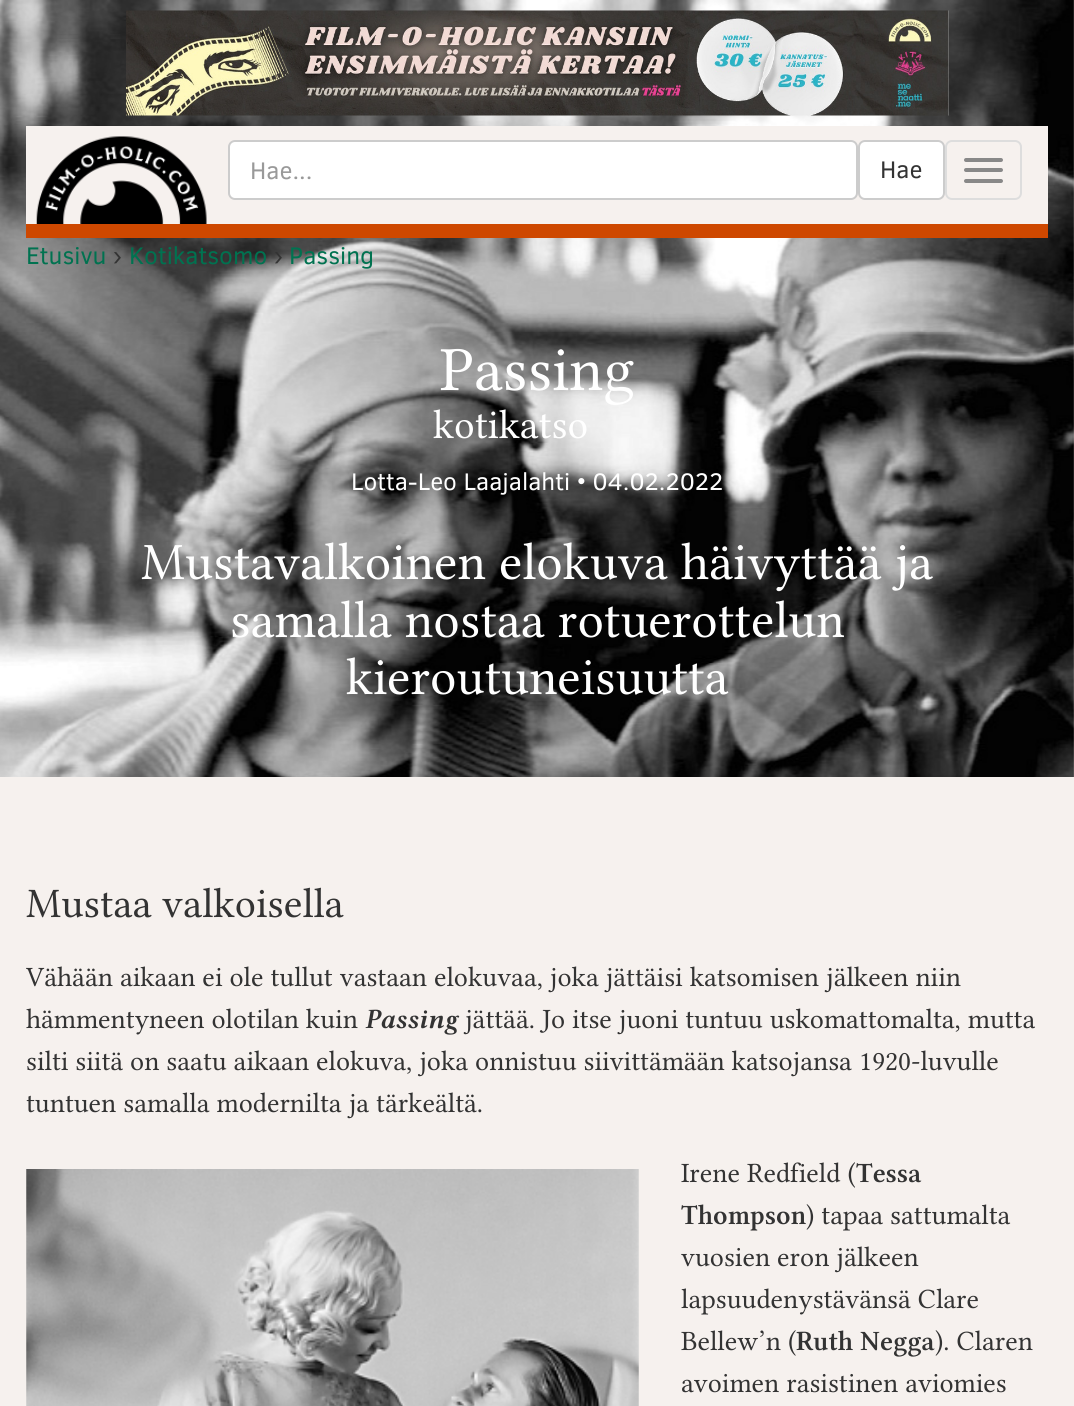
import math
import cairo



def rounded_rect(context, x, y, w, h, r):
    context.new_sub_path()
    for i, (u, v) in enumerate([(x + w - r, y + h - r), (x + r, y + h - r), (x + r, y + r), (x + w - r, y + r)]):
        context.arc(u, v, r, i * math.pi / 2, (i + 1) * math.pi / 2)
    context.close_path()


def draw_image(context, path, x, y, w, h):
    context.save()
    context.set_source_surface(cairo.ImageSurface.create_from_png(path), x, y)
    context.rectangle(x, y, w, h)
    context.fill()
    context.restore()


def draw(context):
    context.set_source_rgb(246 / 255, 241 / 255, 238 / 255)
    context.paint()
    draw_image(context, "images/3.png", 0, 0, 1074, 777)
    draw_image(context, "images/1.png", 126, 10, 823, 106)
    context.set_source_rgb(246 / 255, 241 / 255, 238 / 255)
    context.rectangle(26, 126, 1022, 98)
    context.fill()
    context.set_source_rgb(206 / 255, 72 / 255, 0)
    context.rectangle(26, 224, 1022, 14)
    context.fill()
    draw_image(context, "images/2.png", 36, 136, 171, 88)
    context.set_source_rgb(1, 1, 1)
    rounded_rect(context, 229, 141, 628, 58, 6)
    context.fill_preserve()
    context.set_source_rgb(204 / 255, 204 / 255, 204 / 255)
    context.stroke()
    context.set_source_rgb(1, 1, 1)
    rounded_rect(context, 859, 141, 85, 58, 6)
    context.fill_preserve()
    context.set_source_rgb(204 / 255, 204 / 255, 204 / 255)
    context.stroke()
    rounded_rect(context, 946, 141, 75, 58, 6)
    context.set_source_rgb(221 / 255, 221 / 255, 221 / 255)
    context.stroke()
    context.set_source_rgb(136 / 255, 136 / 255, 136 / 255)
    rounded_rect(context, 964, 158, 39, 4, 2)
    context.fill()
    rounded_rect(context, 964, 168, 39, 4, 2)
    context.fill()
    rounded_rect(context, 964, 179, 39, 4, 2)
    context.fill()
    draw_image(context, "images/4.png", 26, 1169, 613, 237)
    context.select_font_face("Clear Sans")
    context.set_font_size(24.5)
    context.set_source_rgb(153 / 255, 153 / 255, 153 / 255)
    context.move_to(250, 179)
    context.show_text("Hae...")
    context.set_source_rgb(51 / 255, 51 / 255, 51 / 255)
    context.move_to(880, 178)
    context.show_text("Hae")
    context.set_source_rgb(0, 114 / 255, 80 / 255)
    context.move_to(26, 264)
    context.show_text("Etusivu")
    context.set_source_rgb(51 / 255, 51 / 255, 51 / 255)
    context.move_to(113, 264)
    context.show_text("›")
    context.set_source_rgb(0, 114 / 255, 80 / 255)
    context.move_to(129, 264)
    context.show_text("Kotikatsomo")
    context.set_source_rgb(51 / 255, 51 / 255, 51 / 255)
    context.move_to(274, 264)
    context.show_text("›")
    context.set_source_rgb(0, 114 / 255, 80 / 255)
    context.move_to(289, 264)
    context.show_text("Passing")
    context.select_font_face("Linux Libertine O")
    context.set_font_size(63)
    context.set_source_rgb(1, 1, 1)
    context.move_to(440, 390)
    context.show_text("Passing")
    context.set_font_size(41)
    context.move_to(433, 438)
    context.show_text("kotikatso")
    context.select_font_face("Clear Sans")
    context.set_font_size(24.5)
    context.move_to(351, 490)
    context.show_text("Lotta-Leo Laajalahti • 04.02.2022")
    context.select_font_face("Linux Libertine O")
    context.set_font_size(52.5)
    context.move_to(141, 579)
    context.show_text("Mustavalkoinen elokuva häivyttää ja")
    context.move_to(230, 637)
    context.show_text("samalla nostaa rotuerottelun")
    context.move_to(346, 694)
    context.show_text("kieroutuneisuutta")
    context.set_font_size(42)
    context.set_source_rgb(51 / 255, 51 / 255, 51 / 255)
    context.move_to(26, 917)
    context.show_text("Mustaa valkoisella")
    context.set_font_size(28)
    context.move_to(26, 986)
    context.show_text("Vähään aikaan ei ole tullut vastaan elokuvaa, joka jättäisi katsomisen jälkeen niin")
    context.move_to(26, 1028)
    context.show_text("hämmentyneen olotilan kuin")
    context.select_font_face("Linux Libertine O SemiBold", cairo.FontSlant.ITALIC)
    context.move_to(365, 1028)
    context.show_text("Passing")
    context.select_font_face("Linux Libertine O")
    context.move_to(465, 1028)
    context.show_text("jättää. Jo itse juoni tuntuu uskomattomalta, mutta")
    context.move_to(26, 1070)
    context.show_text("silti siitä on saatu aikaan elokuva, joka onnistuu siivittämään katsojansa 1920-luvulle")
    context.move_to(26, 1112)
    context.show_text("tuntuen samalla modernilta ja tärkeältä.")
    context.move_to(681, 1182)
    context.show_text("Irene Redfield (")
    context.select_font_face("Linux Libertine O SemiBold")
    context.move_to(856, 1182)
    context.show_text("Tessa")
    context.move_to(681, 1224)
    context.show_text("Thompson")
    context.select_font_face("Linux Libertine O")
    context.move_to(806, 1224)
    context.show_text(") tapaa sattumalta")
    context.move_to(681, 1266)
    context.show_text("vuosien eron jälkeen")
    context.move_to(681, 1308)
    context.show_text("lapsuudenystävänsä Clare")
    context.move_to(681, 1350)
    context.show_text("Bellew’n (")
    context.select_font_face("Linux Libertine O SemiBold")
    context.move_to(796, 1350)
    context.show_text("Ruth Negga")
    context.select_font_face("Linux Libertine O")
    context.move_to(935, 1350)
    context.show_text("). Claren")
    context.move_to(681, 1392)
    context.show_text("avoimen rasistinen aviomies")


surface = cairo.ImageSurface(cairo.Format.RGB24, 1074, 1406)
context = cairo.Context(surface)
options = cairo.FontOptions()
options.set_hint_metrics(cairo.HintMetrics.OFF)
options.set_hint_style(cairo.HintStyle.NONE)
context.set_font_options(options)
context.set_miter_limit(4)
draw(context)
surface.write_to_png("out.png")
